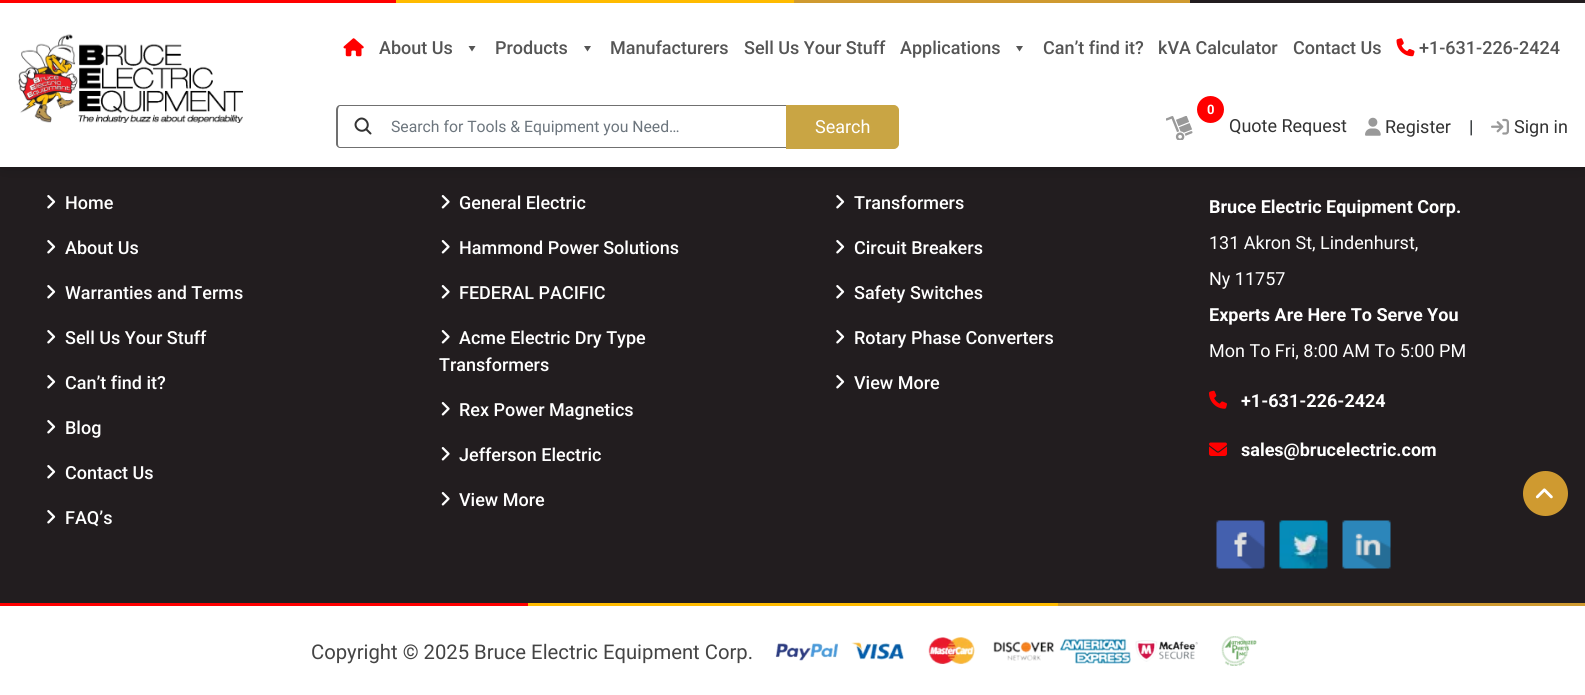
import math
import cairo



def rounded_rect(context, x, y, w, h, r):
    context.new_sub_path()
    for i, (u, v) in enumerate([(x + w - r, y + h - r), (x + r, y + h - r), (x + r, y + r), (x + w - r, y + r)]):
        context.arc(u, v, r, i * math.pi / 2, (i + 1) * math.pi / 2)
    context.close_path()


def draw_shadow(context, x, y, w, h, r, blur, alpha):
    context.push_group_with_content(cairo.Content.ALPHA)
    context.set_operator(cairo.Operator.SOURCE)
    for i in range(15, -16, -2):
        e = blur * i / 6
        if min(w, h) + 2 * e > 0:
            context.set_source_rgba(0, 0, 0, alpha * math.erfc((i - 1) / 8.5) / 2)
            rounded_rect(context, x - e, y - e, w + 2 * e, h + 2 * e, max(0, min(r + e + blur * .6, min(w, h) / 2 + e)))
            context.fill()
    context.mask(context.pop_group())


def draw_image(context, path, x, y, w, h):
    context.save()
    context.set_source_surface(cairo.ImageSurface.create_from_png(path), x, y)
    context.rectangle(x, y, w, h)
    context.fill()
    context.restore()


def draw(context):
    context.set_source_rgb(1, 1, 1)
    context.paint()
    context.set_source_rgb(34 / 255, 29 / 255, 31 / 255)
    context.rectangle(0, 167, 1585, 436)
    context.fill()
    context.set_source_rgb(0, 0, 0)
    draw_shadow(context, 3, -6, 1580, 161, 0, 10.5, 1)
    context.set_source_rgb(1, 0, 0)
    context.rectangle(0, 0, 396, 3)
    context.fill()
    context.set_source_rgb(1, 187 / 255, 0)
    context.rectangle(396, 0, 398, 3)
    context.fill()
    context.set_source_rgb(207 / 255, 154 / 255, 48 / 255)
    context.rectangle(794, 0, 396, 3)
    context.fill()
    context.set_source_rgb(34 / 255, 29 / 255, 31 / 255)
    context.rectangle(1190, 0, 395, 3)
    context.fill()
    context.set_source_rgb(1, 1, 1)
    context.rectangle(0, 3, 1585, 164)
    context.fill()
    draw_image(context, "images/1.png", 18, 34, 225, 89)
    draw_image(context, "images/2.png", 343, 38, 21, 19)
    context.set_source_rgb(85 / 255, 85 / 255, 85 / 255)
    context.new_path()
    context.move_to(475.5, 46)
    context.line_to(472, 51.5)
    context.line_to(468.5, 46)
    context.close_path()
    context.fill()
    context.new_path()
    context.move_to(591, 46)
    context.line_to(587.5, 51.5)
    context.line_to(584, 46)
    context.close_path()
    context.fill()
    context.new_path()
    context.move_to(1023, 46)
    context.line_to(1019.5, 51.5)
    context.line_to(1016, 46)
    context.close_path()
    context.fill()
    draw_image(context, "images/3.png", 1396, 38, 19, 19)
    context.set_source_rgb(112 / 255, 112 / 255, 112 / 255)
    context.set_fill_rule(cairo.FillRule.EVEN_ODD)
    context.new_path()
    context.move_to(340, 105)
    context.line_to(786, 105)
    context.line_to(786, 148)
    context.line_to(340, 148)
    context.curve_to(338, 148, 336, 146, 336, 144)
    context.line_to(336, 110)
    context.curve_to(336, 107, 338, 105, 340, 105)
    context.close_path()
    context.move_to(340, 106)
    context.line_to(786, 106)
    context.line_to(786, 147)
    context.line_to(340, 147)
    context.curve_to(339, 147, 338, 146, 338, 144)
    context.line_to(338, 110)
    context.curve_to(338, 108, 339, 106, 340, 106)
    context.close_path()
    context.fill()
    context.new_path()
    context.move_to(370.5, 133.5)
    context.line_to(366, 129)
    context.move_to(366, 129)
    context.curve_to(371.5, 123.5, 363, 114.5, 357.5, 120.5)
    context.curve_to(351.5, 126, 360.5, 134.5, 366, 129)
    context.close_path()
    context.set_source_rgb(51 / 255, 51 / 255, 51 / 255)
    context.set_line_cap(cairo.LineCap.ROUND)
    context.set_line_join(cairo.LineJoin.ROUND)
    context.stroke()
    context.set_source_rgb(201 / 255, 165 / 255, 68 / 255)
    context.new_path()
    context.move_to(787, 106)
    context.line_to(894, 106)
    context.curve_to(896, 106, 898, 108, 898, 110)
    context.line_to(898, 144)
    context.curve_to(898, 146, 896, 148, 894, 148)
    context.line_to(787, 148)
    context.close_path()
    context.fill_preserve()
    context.set_line_cap(cairo.LineCap.BUTT)
    context.set_line_join(cairo.LineJoin.MITER)
    context.stroke()
    context.set_source_rgb(1, 0, 0)
    context.arc(1210.5, 109.5, 13.5, 0, 2 * math.pi)
    context.fill()
    draw_image(context, "images/4.png", 1166, 116, 27, 24)
    draw_image(context, "images/5.png", 1365, 117, 16, 19)
    draw_image(context, "images/6.png", 1491, 118, 18, 17)
    draw_image(context, "images/7.png", 47, 195, 9, 14)
    draw_image(context, "images/7.png", 47, 240, 9, 14)
    draw_image(context, "images/7.png", 47, 285, 9, 14)
    draw_image(context, "images/7.png", 47, 330, 9, 14)
    draw_image(context, "images/7.png", 47, 375, 9, 14)
    draw_image(context, "images/7.png", 47, 420, 9, 14)
    draw_image(context, "images/7.png", 47, 465, 9, 14)
    draw_image(context, "images/7.png", 47, 510, 9, 14)
    draw_image(context, "images/8.png", 441, 195, 9, 14)
    draw_image(context, "images/8.png", 441, 240, 9, 14)
    draw_image(context, "images/8.png", 441, 285, 9, 14)
    draw_image(context, "images/8.png", 441, 330, 9, 14)
    draw_image(context, "images/8.png", 441, 402, 9, 14)
    draw_image(context, "images/8.png", 441, 447, 9, 14)
    draw_image(context, "images/8.png", 441, 492, 9, 14)
    draw_image(context, "images/7.png", 836, 195, 9, 14)
    draw_image(context, "images/7.png", 836, 240, 9, 14)
    draw_image(context, "images/7.png", 836, 285, 9, 14)
    draw_image(context, "images/7.png", 836, 330, 9, 14)
    draw_image(context, "images/7.png", 836, 375, 9, 14)
    draw_image(context, "images/9.png", 1209, 390, 18, 19)
    draw_image(context, "images/10.png", 1209, 442, 18, 14)
    draw_image(context, "images/11.png", 1216, 520, 49, 49)
    draw_image(context, "images/12.png", 1279, 520, 49, 49)
    draw_image(context, "images/13.png", 1342, 520, 49, 49)
    context.set_source_rgb(207 / 255, 154 / 255, 48 / 255)
    context.arc(1545.5, 493.5, 21.5, 0, 2 * math.pi)
    context.fill_preserve()
    context.stroke()
    draw_image(context, "images/14.png", 1535, 488, 18, 11)
    context.set_source_rgb(1, 0, 0)
    context.rectangle(0, 603, 528, 3)
    context.fill()
    context.set_source_rgb(1, 187 / 255, 0)
    context.rectangle(528, 603, 530, 3)
    context.fill()
    context.set_source_rgb(207 / 255, 154 / 255, 48 / 255)
    context.rectangle(1058, 603, 527, 3)
    context.fill()
    draw_image(context, "images/15.png", 775, 643, 64, 18)
    draw_image(context, "images/16.png", 851, 642, 53, 18)
    draw_image(context, "images/17.png", 928, 637, 47, 28)
    draw_image(context, "images/18.png", 993, 641, 62, 20)
    draw_image(context, "images/19.png", 1059, 638, 72, 26)
    draw_image(context, "images/20.png", 1135, 640, 63, 22)
    draw_image(context, "images/21.png", 1221, 636, 36, 30)
    context.select_font_face("Roboto Medium")
    context.set_font_size(18)
    context.set_source_rgb(85 / 255, 85 / 255, 85 / 255)
    context.move_to(379, 54)
    context.show_text("About Us")
    context.move_to(495, 54)
    context.show_text("Products")
    context.move_to(610, 54)
    context.show_text("Manufacturers")
    context.move_to(744, 54)
    context.show_text("Sell Us Your Stuff")
    context.move_to(900, 54)
    context.show_text("Applications")
    context.move_to(1043, 54)
    context.show_text("Can’t find it?")
    context.move_to(1158, 54)
    context.show_text("kVA Calculator")
    context.move_to(1293, 54)
    context.show_text("Contact Us")
    context.move_to(1419, 54)
    context.show_text("+1-631-226-2424")
    context.select_font_face("Roboto")
    context.set_font_size(15.75)
    context.set_source_rgb(108 / 255, 117 / 255, 125 / 255)
    context.move_to(391, 132)
    context.show_text("Search for Tools & Equipment you Need…")
    context.set_font_size(18)
    context.set_source_rgb(1, 1, 1)
    context.move_to(815, 133)
    context.show_text("Search")
    context.select_font_face("Roboto", cairo.FontSlant.NORMAL, cairo.FontWeight.BOLD)
    context.set_font_size(13)
    context.move_to(1207, 114)
    context.show_text("0")
    context.select_font_face("Roboto")
    context.set_font_size(18)
    context.set_source_rgb(51 / 255, 51 / 255, 51 / 255)
    context.move_to(1229, 132)
    context.show_text("Quote Request")
    context.move_to(1385, 133)
    context.show_text("Register")
    context.set_source_rgb(33 / 255, 37 / 255, 41 / 255)
    context.move_to(1469, 133)
    context.show_text("|")
    context.set_source_rgb(51 / 255, 51 / 255, 51 / 255)
    context.move_to(1514, 133)
    context.show_text("Sign in")
    context.select_font_face("Roboto Medium")
    context.set_source_rgb(1, 1, 1)
    context.move_to(65, 209)
    context.show_text("Home")
    context.move_to(65, 254)
    context.show_text("About Us")
    context.move_to(65, 299)
    context.show_text("Warranties and Terms")
    context.move_to(65, 344)
    context.show_text("Sell Us Your Stuff")
    context.move_to(65, 389)
    context.show_text("Can’t find it?")
    context.move_to(65, 434)
    context.show_text("Blog")
    context.move_to(65, 479)
    context.show_text("Contact Us")
    context.move_to(65, 524)
    context.show_text("FAQ’s")
    context.move_to(459, 209)
    context.show_text("General Electric")
    context.move_to(459, 254)
    context.show_text("Hammond Power Solutions")
    context.move_to(459, 299)
    context.show_text("FEDERAL PACIFIC")
    context.move_to(459, 344)
    context.show_text("Acme Electric Dry Type")
    context.move_to(439, 371)
    context.show_text("Transformers")
    context.move_to(459, 416)
    context.show_text("Rex Power Magnetics")
    context.move_to(459, 461)
    context.show_text("Jefferson Electric")
    context.move_to(459, 506)
    context.show_text("View More")
    context.move_to(854, 209)
    context.show_text("Transformers")
    context.move_to(854, 254)
    context.show_text("Circuit Breakers")
    context.move_to(854, 299)
    context.show_text("Safety Switches")
    context.move_to(854, 344)
    context.show_text("Rotary Phase Converters")
    context.move_to(854, 389)
    context.show_text("View More")
    context.select_font_face("Roboto", cairo.FontSlant.NORMAL, cairo.FontWeight.BOLD)
    context.move_to(1209, 213)
    context.show_text("Bruce Electric Equipment Corp.")
    context.select_font_face("Roboto")
    context.move_to(1209, 249)
    context.show_text("131 Akron St, Lindenhurst,")
    context.move_to(1209, 285)
    context.show_text("Ny 11757")
    context.select_font_face("Roboto", cairo.FontSlant.NORMAL, cairo.FontWeight.BOLD)
    context.move_to(1209, 321)
    context.show_text("Experts Are Here To Serve You")
    context.select_font_face("Roboto")
    context.move_to(1209, 357)
    context.show_text("Mon To Fri, 8:00 AM To 5:00 PM")
    context.select_font_face("Roboto", cairo.FontSlant.NORMAL, cairo.FontWeight.BOLD)
    context.move_to(1241, 407)
    context.show_text("+1-631-226-2424")
    context.move_to(1241, 456)
    context.show_text("sales@brucelectric.com")
    context.select_font_face("Roboto")
    context.set_font_size(20.25)
    context.set_source_rgb(68 / 255, 68 / 255, 68 / 255)
    context.move_to(311, 659)
    context.show_text("Copyright © 2025 Bruce Electric Equipment Corp.")


surface = cairo.ImageSurface(cairo.Format.RGB24, 1585, 695)
context = cairo.Context(surface)
options = cairo.FontOptions()
options.set_hint_metrics(cairo.HintMetrics.OFF)
options.set_hint_style(cairo.HintStyle.NONE)
context.set_font_options(options)
context.set_miter_limit(4)
draw(context)
surface.write_to_png("out.png")
